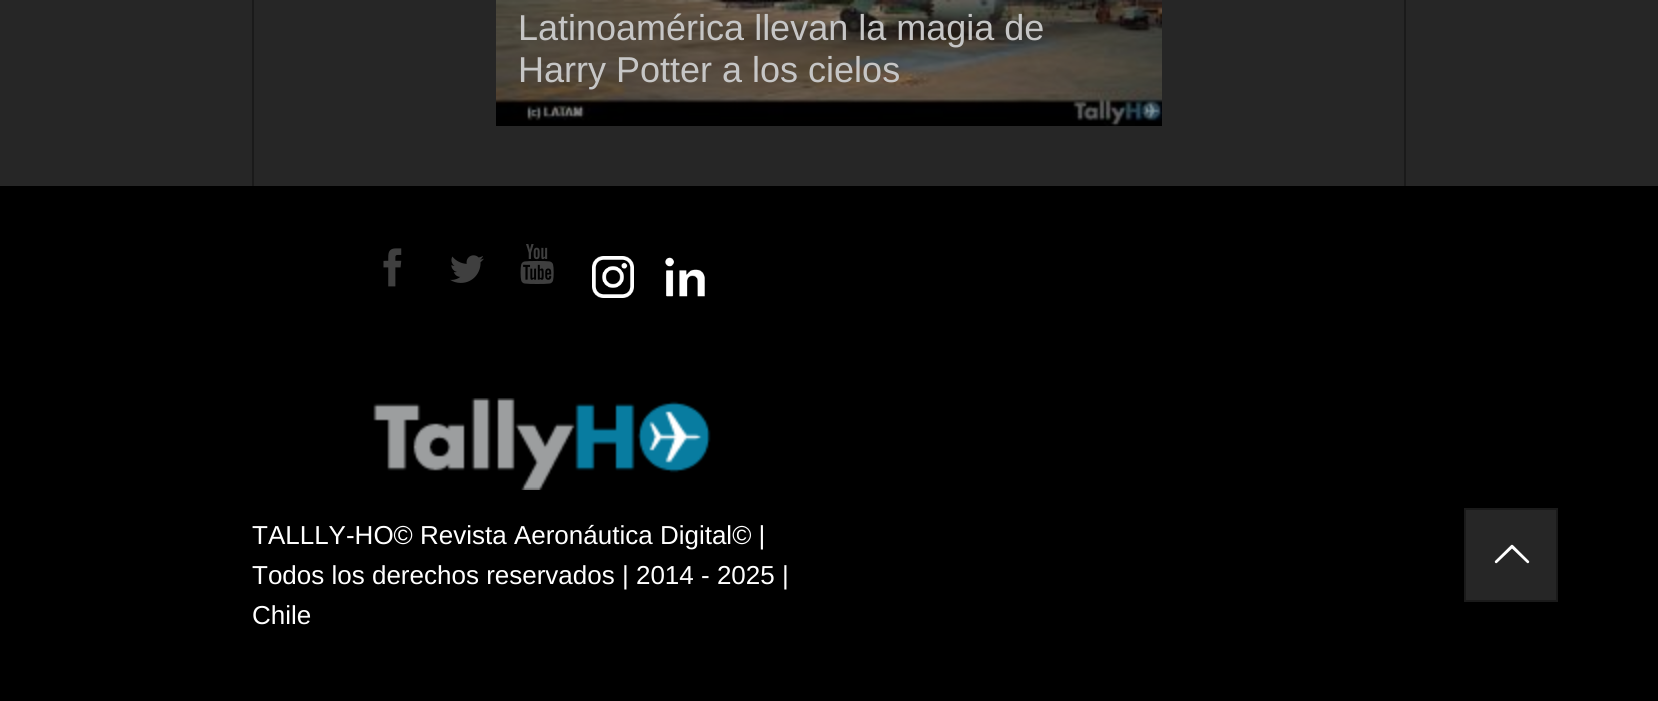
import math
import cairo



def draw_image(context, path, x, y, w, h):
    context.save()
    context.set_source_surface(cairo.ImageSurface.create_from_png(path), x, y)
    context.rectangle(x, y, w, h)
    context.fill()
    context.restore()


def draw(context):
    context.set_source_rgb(0, 0, 0)
    context.paint()
    context.set_source_rgb(38 / 255, 38 / 255, 38 / 255)
    context.rectangle(0, 0, 1658, 186)
    context.fill()
    context.set_source_rgb(26 / 255, 26 / 255, 26 / 255)
    context.rectangle(1404, 0, 2, 186)
    context.fill()
    context.rectangle(252, 0, 2, 186)
    context.fill()
    draw_image(context, "images/1.png", 496, 0, 666, 126)
    draw_image(context, "images/2.png", 383, 248, 19, 39)
    draw_image(context, "images/3.png", 450, 255, 34, 28)
    draw_image(context, "images/4.png", 520, 244, 34, 40)
    draw_image(context, "images/5.png", 592, 256, 42, 42)
    draw_image(context, "images/6.png", 665, 257, 40, 40)
    draw_image(context, "images/7.png", 373, 398, 338, 92)
    context.set_source_rgb(38 / 255, 38 / 255, 38 / 255)
    context.rectangle(1465, 509, 92, 92)
    context.fill_preserve()
    context.set_source_rgb(26 / 255, 26 / 255, 26 / 255)
    context.stroke()
    draw_image(context, "images/8.png", 1494, 544, 36, 20)
    context.select_font_face("Liberation Sans")
    context.set_font_size(36)
    context.set_source_rgb(198 / 255, 198 / 255, 198 / 255)
    context.move_to(518, 40)
    context.show_text("Latinoamérica llevan la magia de")
    context.move_to(518, 82)
    context.show_text("Harry Potter a los cielos")
    context.set_font_size(26)
    context.set_source_rgb(1, 1, 1)
    context.move_to(252, 544)
    context.show_text("TALLLY-HO© Revista Aeronáutica Digital© |")
    context.move_to(252, 584)
    context.show_text("Todos los derechos reservados | 2014 - 2025 |")
    context.move_to(252, 624)
    context.show_text("Chile")


surface = cairo.ImageSurface(cairo.Format.RGB24, 1658, 701)
context = cairo.Context(surface)
options = cairo.FontOptions()
options.set_hint_metrics(cairo.HintMetrics.OFF)
options.set_hint_style(cairo.HintStyle.NONE)
context.set_font_options(options)
context.set_miter_limit(4)
draw(context)
surface.write_to_png("out.png")
